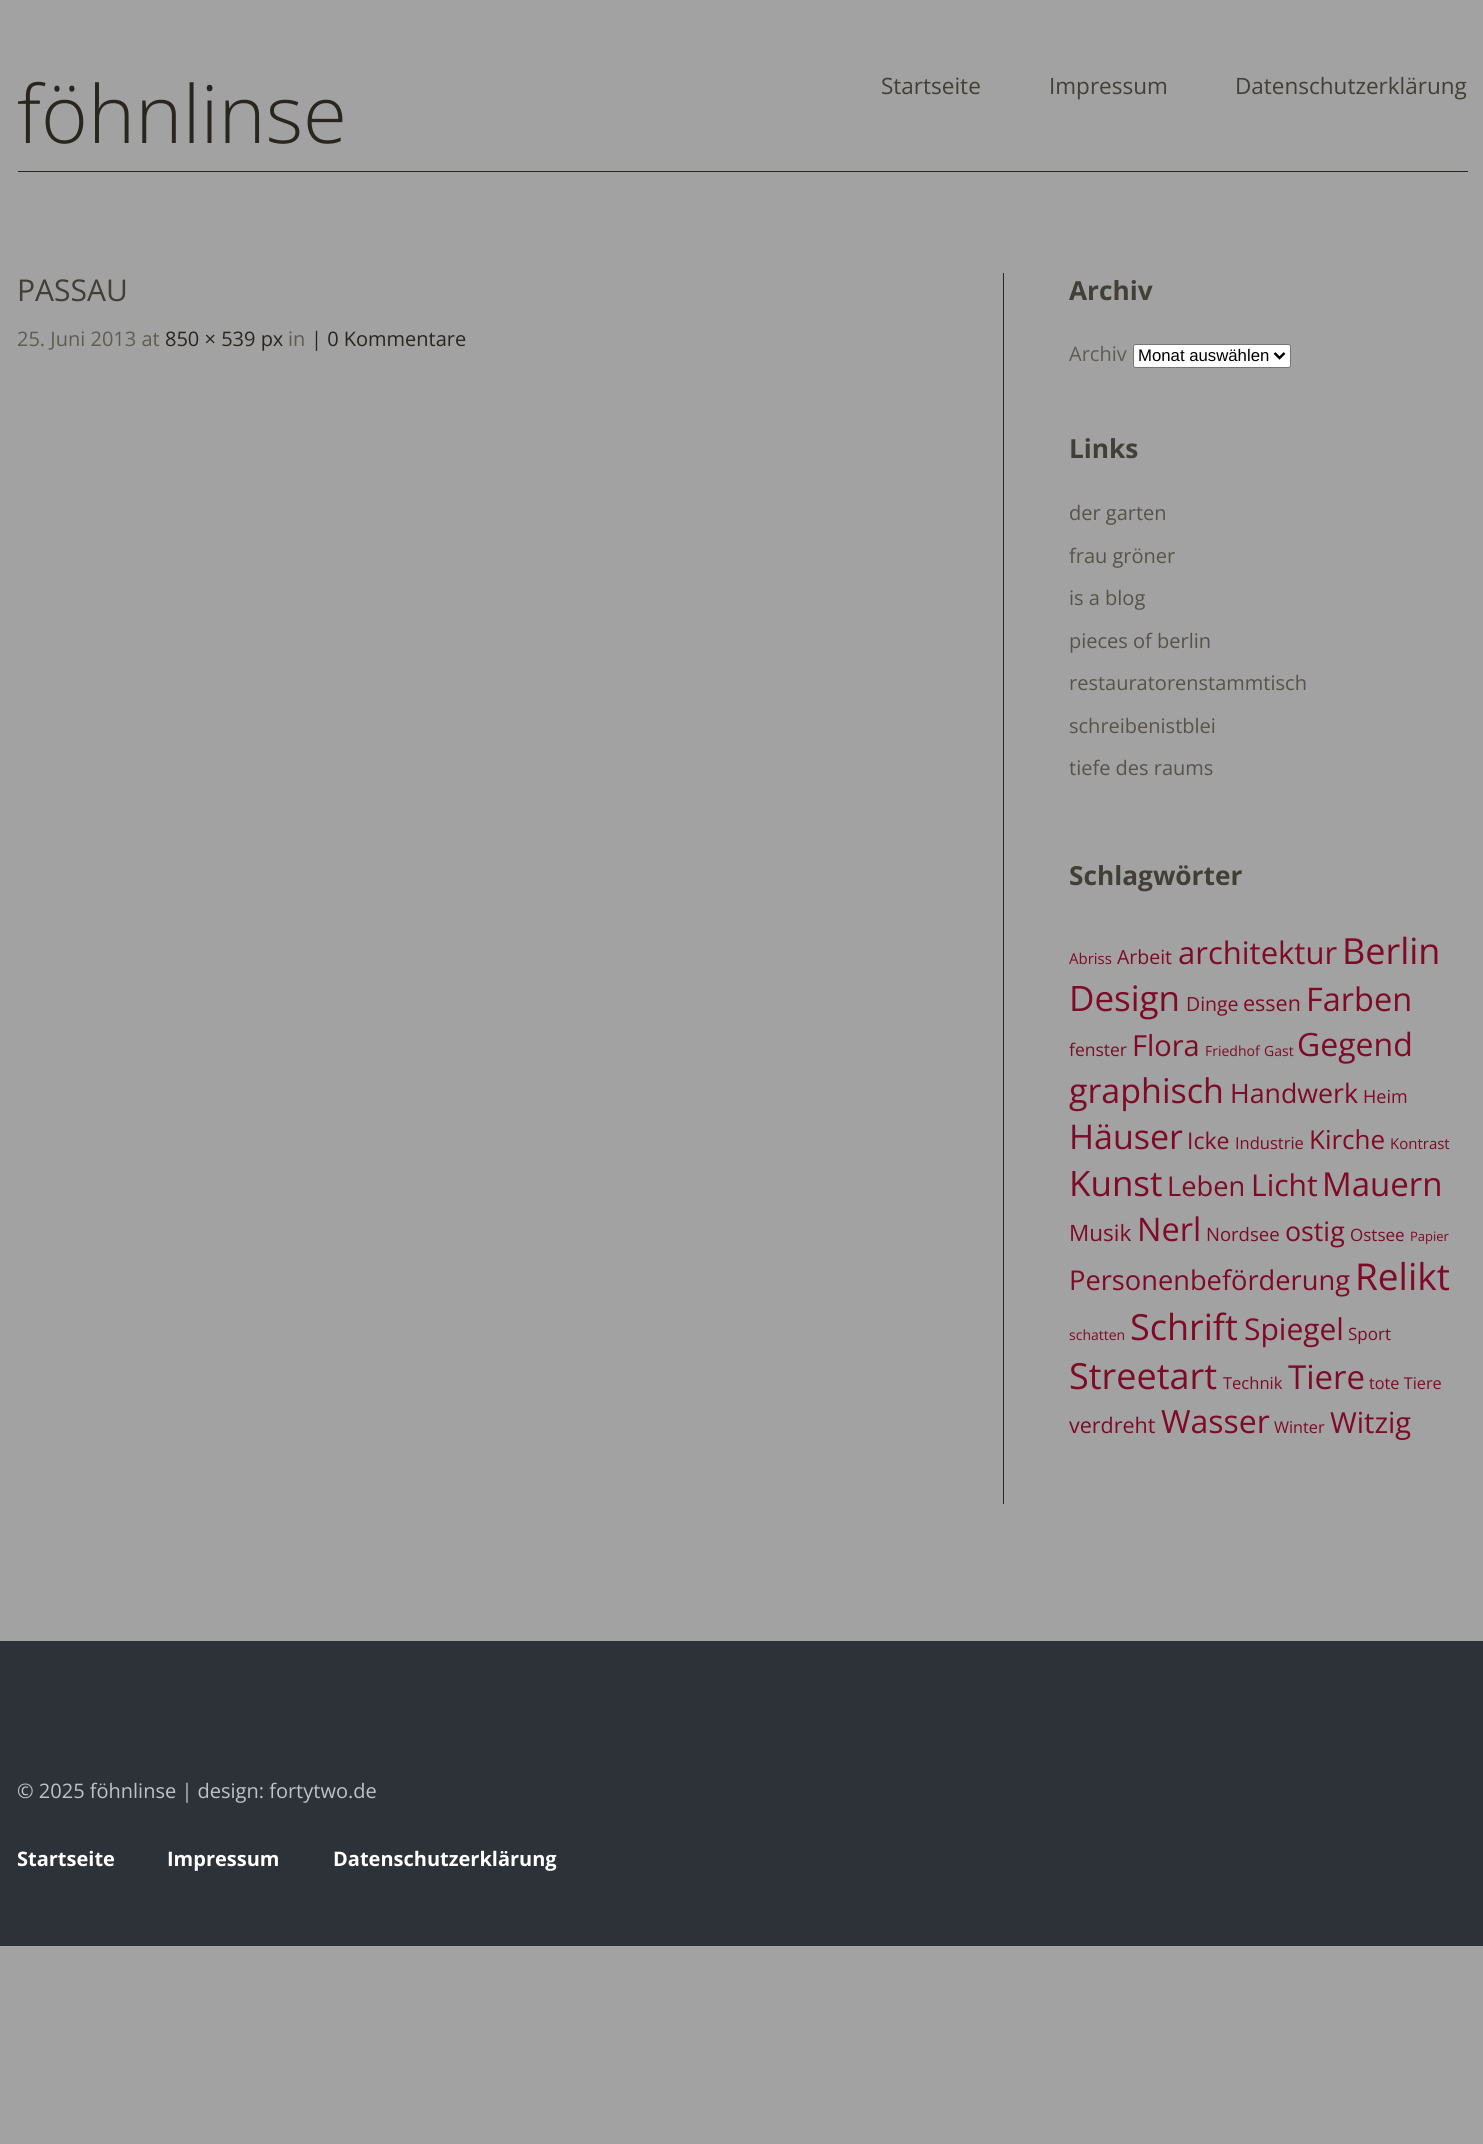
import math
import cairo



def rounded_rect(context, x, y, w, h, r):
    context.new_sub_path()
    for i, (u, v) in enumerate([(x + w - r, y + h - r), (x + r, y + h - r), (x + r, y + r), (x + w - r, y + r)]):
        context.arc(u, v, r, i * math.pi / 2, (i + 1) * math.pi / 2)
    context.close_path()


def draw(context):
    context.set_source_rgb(162 / 255, 162 / 255, 162 / 255)
    context.paint()
    context.set_source_rgb(41 / 255, 37 / 255, 31 / 255)
    context.rectangle(18, 171, 1450, 1)
    context.fill()
    context.rectangle(1003, 273, 1, 1231)
    context.fill()
    context.set_source_rgb(1, 1, 1)
    rounded_rect(context, 1133.5, 344.5, 157, 23, 2)
    context.fill_preserve()
    context.set_source_rgb(118 / 255, 118 / 255, 118 / 255)
    context.set_line_width(1)
    context.stroke()
    context.new_path()
    context.move_to(1274.5, 353)
    context.line_to(1279.5, 358)
    context.line_to(1284.5, 353)
    context.set_source_rgb(0, 0, 0)
    context.set_line_width(2.5)
    context.stroke()
    context.set_source_rgb(45 / 255, 49 / 255, 56 / 255)
    context.rectangle(0, 1641, 1483, 305)
    context.fill()
    context.select_font_face("Open Sans Light")
    context.set_font_size(80)
    context.set_source_rgb(41 / 255, 37 / 255, 31 / 255)
    context.move_to(17, 143)
    context.show_text("föhnlinse")
    context.select_font_face("Open Sans")
    context.set_font_size(22.5)
    context.set_source_rgb(66 / 255, 63 / 255, 55 / 255)
    context.move_to(881, 94)
    context.show_text("Startseite")
    context.move_to(1049, 94)
    context.show_text("Impressum")
    context.move_to(1235, 94)
    context.show_text("Datenschutzerklärung")
    context.set_font_size(30)
    context.move_to(17, 301)
    context.show_text("PASSAU")
    context.set_font_size(20)
    context.set_source_rgb(95 / 255, 92 / 255, 82 / 255)
    context.move_to(17, 346)
    context.show_text("25. Juni 2013 at")
    context.set_source_rgb(41 / 255, 37 / 255, 31 / 255)
    context.move_to(165, 346)
    context.show_text("850 × 539 px")
    context.set_source_rgb(95 / 255, 92 / 255, 82 / 255)
    context.move_to(288, 346)
    context.show_text("in")
    context.set_source_rgb(41 / 255, 37 / 255, 31 / 255)
    context.move_to(311, 346)
    context.show_text("| 0 Kommentare")
    context.select_font_face("Open Sans", cairo.FontSlant.NORMAL, cairo.FontWeight.BOLD)
    context.set_font_size(26.25)
    context.set_source_rgb(66 / 255, 63 / 255, 55 / 255)
    context.move_to(1069, 300)
    context.show_text("Archiv")
    context.select_font_face("Open Sans")
    context.set_font_size(20)
    context.set_source_rgb(95 / 255, 92 / 255, 82 / 255)
    context.move_to(1069, 361)
    context.show_text("Archiv")
    context.select_font_face("Liberation Sans")
    context.set_font_size(16.75)
    context.set_source_rgb(0, 0, 0)
    context.move_to(1138, 361)
    context.show_text("Monat auswählen")
    context.select_font_face("Open Sans", cairo.FontSlant.NORMAL, cairo.FontWeight.BOLD)
    context.set_font_size(26.25)
    context.set_source_rgb(66 / 255, 63 / 255, 55 / 255)
    context.move_to(1069, 458)
    context.show_text("Links")
    context.select_font_face("Open Sans")
    context.set_font_size(20)
    context.set_source_rgb(87 / 255, 83 / 255, 74 / 255)
    context.move_to(1069, 520)
    context.show_text("der garten")
    context.move_to(1069, 563)
    context.show_text("frau gröner")
    context.move_to(1069, 605)
    context.show_text("is a blog")
    context.move_to(1069, 648)
    context.show_text("pieces of berlin")
    context.move_to(1069, 690)
    context.show_text("restauratorenstammtisch")
    context.move_to(1069, 733)
    context.show_text("schreibenistblei")
    context.move_to(1069, 775)
    context.show_text("tiefe des raums")
    context.select_font_face("Open Sans", cairo.FontSlant.NORMAL, cairo.FontWeight.BOLD)
    context.set_font_size(26.25)
    context.set_source_rgb(66 / 255, 63 / 255, 55 / 255)
    context.move_to(1069, 885)
    context.show_text("Schlagwörter")
    context.select_font_face("Open Sans")
    context.set_font_size(15)
    context.set_source_rgb(126 / 255, 10 / 255, 39 / 255)
    context.move_to(1069, 964)
    context.show_text("Abriss")
    context.set_font_size(19.5)
    context.move_to(1117, 964)
    context.show_text("Arbeit")
    context.set_font_size(31)
    context.move_to(1178, 964)
    context.show_text("architektur")
    context.set_font_size(36)
    context.move_to(1342, 964)
    context.show_text("Berlin")
    context.set_font_size(35)
    context.move_to(1069, 1011)
    context.show_text("Design")
    context.set_font_size(19.5)
    context.move_to(1186, 1011)
    context.show_text("Dinge")
    context.set_font_size(21.5)
    context.move_to(1243, 1011)
    context.show_text("essen")
    context.set_font_size(32.5)
    context.move_to(1306, 1011)
    context.show_text("Farben")
    context.set_font_size(17.5)
    context.move_to(1069, 1056)
    context.show_text("fenster")
    context.set_font_size(29)
    context.move_to(1132, 1056)
    context.show_text("Flora")
    context.set_font_size(14)
    context.move_to(1205, 1056)
    context.show_text("Friedhof")
    context.move_to(1264, 1056)
    context.show_text("Gast")
    context.set_font_size(32)
    context.move_to(1297, 1056)
    context.show_text("Gegend")
    context.set_font_size(34)
    context.move_to(1069, 1103)
    context.show_text("graphisch")
    context.set_font_size(26.75)
    context.move_to(1230, 1103)
    context.show_text("Handwerk")
    context.set_font_size(18)
    context.move_to(1363, 1103)
    context.show_text("Heim")
    context.set_font_size(34)
    context.move_to(1069, 1149)
    context.show_text("Häuser")
    context.set_font_size(23)
    context.move_to(1187, 1149)
    context.show_text("Icke")
    context.set_font_size(16.5)
    context.move_to(1235, 1149)
    context.show_text("Industrie")
    context.set_font_size(26)
    context.move_to(1309, 1149)
    context.show_text("Kirche")
    context.set_font_size(15)
    context.move_to(1390, 1149)
    context.show_text("Kontrast")
    context.set_font_size(35)
    context.move_to(1069, 1196)
    context.show_text("Kunst")
    context.set_font_size(27.25)
    context.move_to(1167, 1196)
    context.show_text("Leben")
    context.set_font_size(30)
    context.move_to(1251, 1196)
    context.show_text("Licht")
    context.set_font_size(33)
    context.move_to(1322, 1196)
    context.show_text("Mauern")
    context.set_font_size(22.5)
    context.move_to(1069, 1241)
    context.show_text("Musik")
    context.set_font_size(32.5)
    context.move_to(1137, 1241)
    context.show_text("Nerl")
    context.set_font_size(18.5)
    context.move_to(1206, 1241)
    context.show_text("Nordsee")
    context.set_font_size(26.75)
    context.move_to(1285, 1241)
    context.show_text("ostig")
    context.set_font_size(17)
    context.move_to(1350, 1241)
    context.show_text("Ostsee")
    context.set_font_size(13)
    context.move_to(1410, 1241)
    context.show_text("Papier")
    context.set_font_size(27.25)
    context.move_to(1069, 1290)
    context.show_text("Personenbeförderung")
    context.set_font_size(37)
    context.move_to(1355, 1290)
    context.show_text("Relikt")
    context.set_font_size(14)
    context.move_to(1069, 1340)
    context.show_text("schatten")
    context.set_font_size(36)
    context.move_to(1130, 1340)
    context.show_text("Schrift")
    context.set_font_size(30)
    context.move_to(1244, 1340)
    context.show_text("Spiegel")
    context.set_font_size(17)
    context.move_to(1348, 1340)
    context.show_text("Sport")
    context.set_font_size(36)
    context.move_to(1069, 1389)
    context.show_text("Streetart")
    context.set_font_size(16.5)
    context.move_to(1223, 1389)
    context.show_text("Technik")
    context.set_font_size(33)
    context.move_to(1288, 1389)
    context.show_text("Tiere")
    context.set_font_size(16.25)
    context.move_to(1369, 1389)
    context.show_text("tote Tiere")
    context.set_font_size(21.5)
    context.move_to(1069, 1433)
    context.show_text("verdreht")
    context.set_font_size(32)
    context.move_to(1161, 1433)
    context.show_text("Wasser")
    context.set_font_size(16.25)
    context.move_to(1274, 1433)
    context.show_text("Winter")
    context.set_font_size(29)
    context.move_to(1330, 1433)
    context.show_text("Witzig")
    context.set_font_size(20)
    context.set_source_rgb(192 / 255, 193 / 255, 195 / 255)
    context.move_to(17, 1798)
    context.show_text("© 2025 föhnlinse | design: fortytwo.de")
    context.select_font_face("Open Sans", cairo.FontSlant.NORMAL, cairo.FontWeight.BOLD)
    context.set_source_rgb(1, 1, 1)
    context.move_to(17, 1866)
    context.show_text("Startseite")
    context.move_to(167, 1866)
    context.show_text("Impressum")
    context.move_to(333, 1866)
    context.show_text("Datenschutzerklärung")


surface = cairo.ImageSurface(cairo.Format.RGB24, 1483, 2144)
context = cairo.Context(surface)
options = cairo.FontOptions()
options.set_hint_metrics(cairo.HintMetrics.OFF)
options.set_hint_style(cairo.HintStyle.NONE)
context.set_font_options(options)
context.set_miter_limit(4)
draw(context)
surface.write_to_png("out.png")
